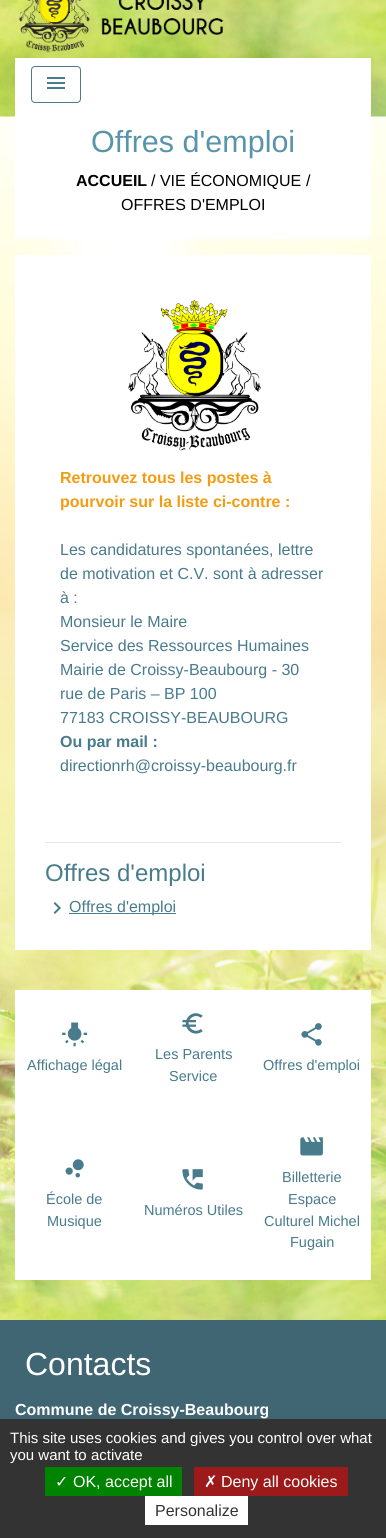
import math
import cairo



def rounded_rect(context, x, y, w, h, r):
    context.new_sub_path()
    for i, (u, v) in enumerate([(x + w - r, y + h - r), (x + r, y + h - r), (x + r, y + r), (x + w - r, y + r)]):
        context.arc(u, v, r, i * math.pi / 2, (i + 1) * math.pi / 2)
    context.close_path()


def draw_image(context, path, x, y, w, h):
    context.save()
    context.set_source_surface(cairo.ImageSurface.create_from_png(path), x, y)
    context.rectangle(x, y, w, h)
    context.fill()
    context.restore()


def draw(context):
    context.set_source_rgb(1, 1, 1)
    context.paint()
    draw_image(context, "images/1.png", 0, 0, 386, 1320)
    draw_image(context, "images/2.png", 19, 0, 205, 53)
    context.set_source_rgb(1, 1, 1)
    context.rectangle(15, 58, 356, 181)
    context.fill()
    rounded_rect(context, 31.5, 66.5, 49, 36, 3.5)
    context.set_source_rgb(72 / 255, 123 / 255, 140 / 255)
    context.set_line_width(1)
    context.stroke()
    draw_image(context, "images/3.png", 47, 77, 18, 12)
    context.set_source_rgb(1, 1, 1)
    context.rectangle(15, 255, 356, 695)
    context.fill()
    draw_image(context, "images/4.png", 128, 300, 133, 151)
    context.set_source_rgb(230 / 255, 230 / 255, 230 / 255)
    context.rectangle(45, 842, 296, 1)
    context.fill()
    draw_image(context, "images/5.png", 53, 902, 8, 12)
    context.set_source_rgb(72 / 255, 123 / 255, 140 / 255)
    context.rectangle(69, 913, 107, 1)
    context.fill()
    context.set_source_rgb(1, 1, 1)
    context.rectangle(15, 990, 356, 123)
    context.fill()
    draw_image(context, "images/6.png", 62, 1022, 26, 25)
    draw_image(context, "images/7.png", 182, 1013, 21, 21)
    draw_image(context, "images/8.png", 301, 1023, 21, 23)
    context.rectangle(15, 1113, 356, 167)
    context.fill()
    draw_image(context, "images/9.png", 65, 1159, 19, 19)
    draw_image(context, "images/10.png", 182, 1169, 21, 21)
    draw_image(context, "images/11.png", 300, 1137, 23, 19)
    context.set_source_rgb(64 / 255, 102 / 255, 115 / 255)
    context.rectangle(0, 1320, 386, 99)
    context.fill()
    context.set_source_rgb(51 / 255, 51 / 255, 51 / 255)
    context.rectangle(0, 1419, 386, 119)
    context.fill()
    context.set_source_rgb(0, 131 / 255, 0)
    context.rectangle(45, 1467, 137, 29)
    context.fill()
    context.set_source_rgb(156 / 255, 26 / 255, 26 / 255)
    context.rectangle(194, 1467, 154, 29)
    context.fill()
    context.set_source_rgb(1, 1, 1)
    context.rectangle(145, 1496, 103, 29)
    context.fill()
    context.select_font_face("Liberation Sans")
    context.set_font_size(30.5)
    context.set_source_rgb(88 / 255, 149 / 255, 170 / 255)
    context.move_to(91, 152)
    context.show_text("Offres d'emploi")
    context.select_font_face("Liberation Sans", cairo.FontSlant.NORMAL, cairo.FontWeight.BOLD)
    context.set_font_size(16)
    context.set_source_rgb(0, 0, 0)
    context.move_to(76, 186)
    context.show_text("ACCUEIL")
    context.select_font_face("Liberation Sans")
    context.move_to(151, 186)
    context.show_text("/ VIE ÉCONOMIQUE")
    context.move_to(306, 186)
    context.show_text("/")
    context.move_to(121, 210)
    context.show_text("OFFRES D'EMPLOI")
    context.select_font_face("Liberation Sans", cairo.FontSlant.NORMAL, cairo.FontWeight.BOLD)
    context.set_source_rgb(243 / 255, 156 / 255, 18 / 255)
    context.move_to(60, 483)
    context.show_text("Retrouvez tous les postes à")
    context.move_to(60, 507)
    context.show_text("pourvoir sur la liste ci-contre :")
    context.select_font_face("Liberation Sans")
    context.set_source_rgb(72 / 255, 123 / 255, 140 / 255)
    context.move_to(60, 555)
    context.show_text("Les candidatures spontanées, lettre")
    context.move_to(60, 579)
    context.show_text("de motivation et C.V. sont à adresser")
    context.move_to(60, 603)
    context.show_text("à :")
    context.move_to(60, 627)
    context.show_text("Monsieur le Maire")
    context.move_to(60, 651)
    context.show_text("Service des Ressources Humaines")
    context.move_to(60, 675)
    context.show_text("Mairie de Croissy-Beaubourg - 30")
    context.move_to(60, 699)
    context.show_text("rue de Paris – BP 100")
    context.move_to(60, 723)
    context.show_text("77183 CROISSY-BEAUBOURG")
    context.select_font_face("Liberation Sans", cairo.FontSlant.NORMAL, cairo.FontWeight.BOLD)
    context.move_to(60, 747)
    context.show_text("Ou par mail :")
    context.select_font_face("Liberation Sans")
    context.move_to(60, 771)
    context.show_text("directionrh@croissy-beaubourg.fr")
    context.set_font_size(24)
    context.move_to(45, 881)
    context.show_text("Offres d'emploi")
    context.set_font_size(16)
    context.move_to(69, 912)
    context.show_text("Offres d'emploi")
    context.set_font_size(14.5)
    context.move_to(27, 1070)
    context.show_text("Affichage légal")
    context.move_to(155, 1059)
    context.show_text("Les Parents")
    context.move_to(169, 1081)
    context.show_text("Service")
    context.move_to(263, 1070)
    context.show_text("Offres d'emploi")
    context.move_to(46, 1204)
    context.show_text("École de")
    context.move_to(47, 1226)
    context.show_text("Musique")
    context.move_to(144, 1215)
    context.show_text("Numéros Utiles")
    context.move_to(282, 1182)
    context.show_text("Billetterie")
    context.move_to(288, 1204)
    context.show_text("Espace")
    context.move_to(264, 1226)
    context.show_text("Culturel Michel")
    context.move_to(290, 1247)
    context.show_text("Fugain")
    context.set_font_size(32)
    context.set_source_rgb(1, 1, 1)
    context.move_to(25, 1375)
    context.show_text("Contacts")
    context.select_font_face("Liberation Sans", cairo.FontSlant.NORMAL, cairo.FontWeight.BOLD)
    context.set_font_size(16)
    context.move_to(15, 1415)
    context.show_text("Commune de Croissy-Beaubourg")
    context.select_font_face("Liberation Sans")
    context.set_font_size(15)
    context.move_to(10, 1443)
    context.show_text("This site uses cookies and gives you control over what")
    context.move_to(10, 1460)
    context.show_text("you want to activate")
    context.select_font_face("DejaVu Sans")
    context.set_font_size(16)
    context.move_to(55, 1487)
    context.show_text("✓")
    context.select_font_face("Liberation Sans")
    context.move_to(73, 1487)
    context.show_text("OK, accept all")
    context.select_font_face("DejaVu Sans")
    context.move_to(204, 1487)
    context.show_text("✗")
    context.select_font_face("Liberation Sans")
    context.move_to(221, 1487)
    context.show_text("Deny all cookies")
    context.set_source_rgb(51 / 255, 51 / 255, 51 / 255)
    context.move_to(155, 1516)
    context.show_text("Personalize")


surface = cairo.ImageSurface(cairo.Format.RGB24, 386, 1538)
context = cairo.Context(surface)
options = cairo.FontOptions()
options.set_hint_metrics(cairo.HintMetrics.OFF)
options.set_hint_style(cairo.HintStyle.NONE)
context.set_font_options(options)
context.set_miter_limit(4)
draw(context)
surface.write_to_png("out.png")
